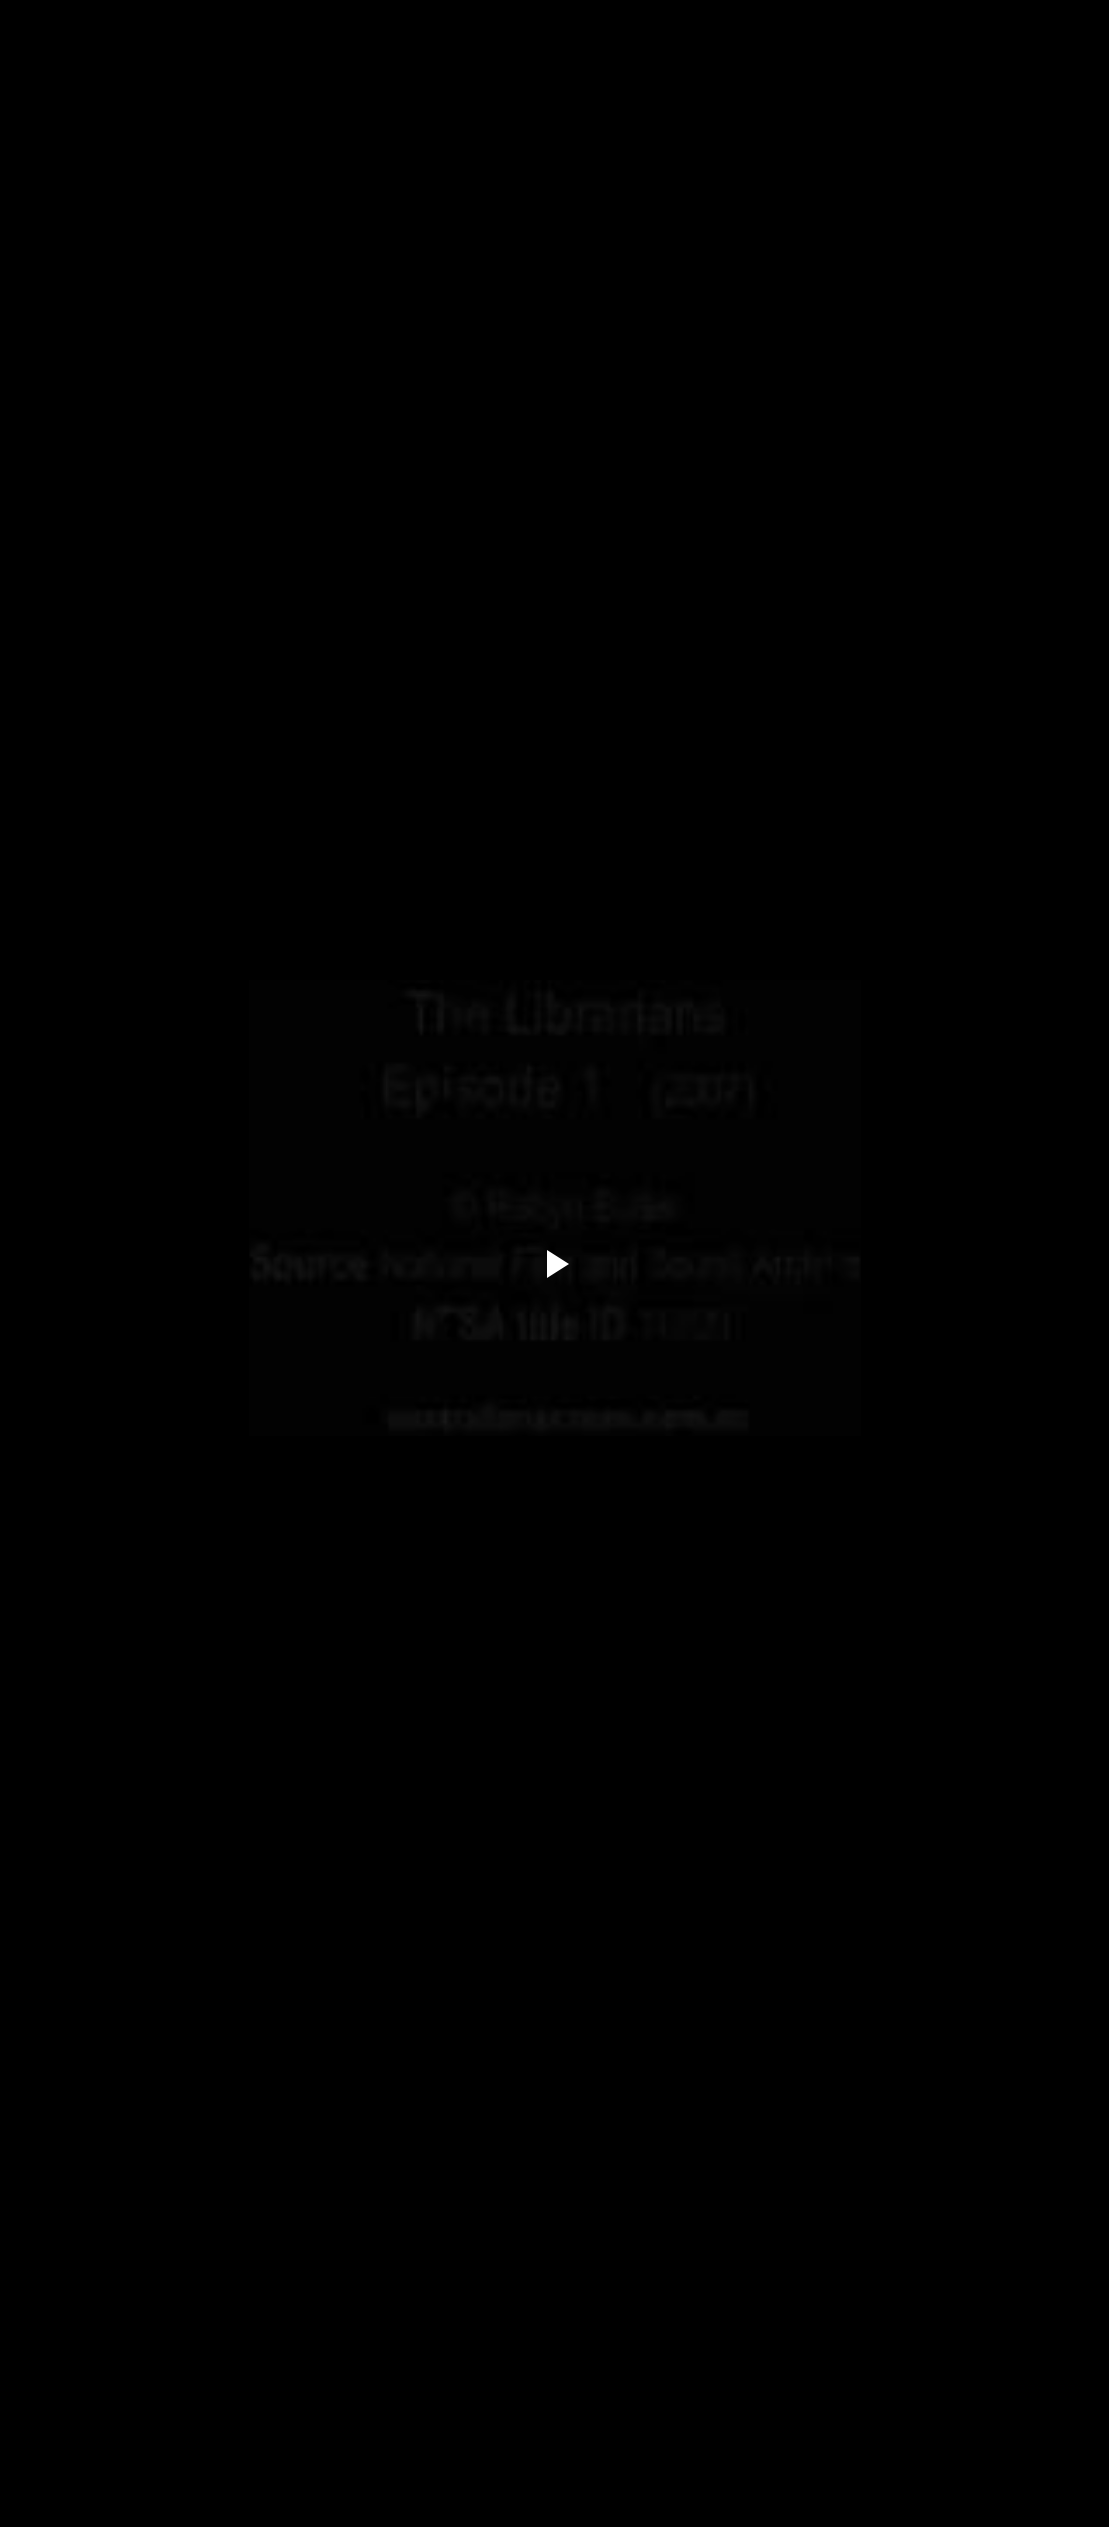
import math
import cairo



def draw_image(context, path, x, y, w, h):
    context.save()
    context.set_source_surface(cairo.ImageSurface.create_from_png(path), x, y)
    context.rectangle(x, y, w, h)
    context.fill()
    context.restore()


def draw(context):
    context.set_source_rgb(0, 0, 0)
    context.paint()
    draw_image(context, "images/1.png", 249, 980, 612, 456)
    draw_image(context, "images/2.png", 547, 1250, 22, 28)


surface = cairo.ImageSurface(cairo.Format.RGB24, 1109, 2527)
context = cairo.Context(surface)
options = cairo.FontOptions()
options.set_hint_metrics(cairo.HintMetrics.OFF)
options.set_hint_style(cairo.HintStyle.NONE)
context.set_font_options(options)
context.set_miter_limit(4)
draw(context)
surface.write_to_png("out.png")
